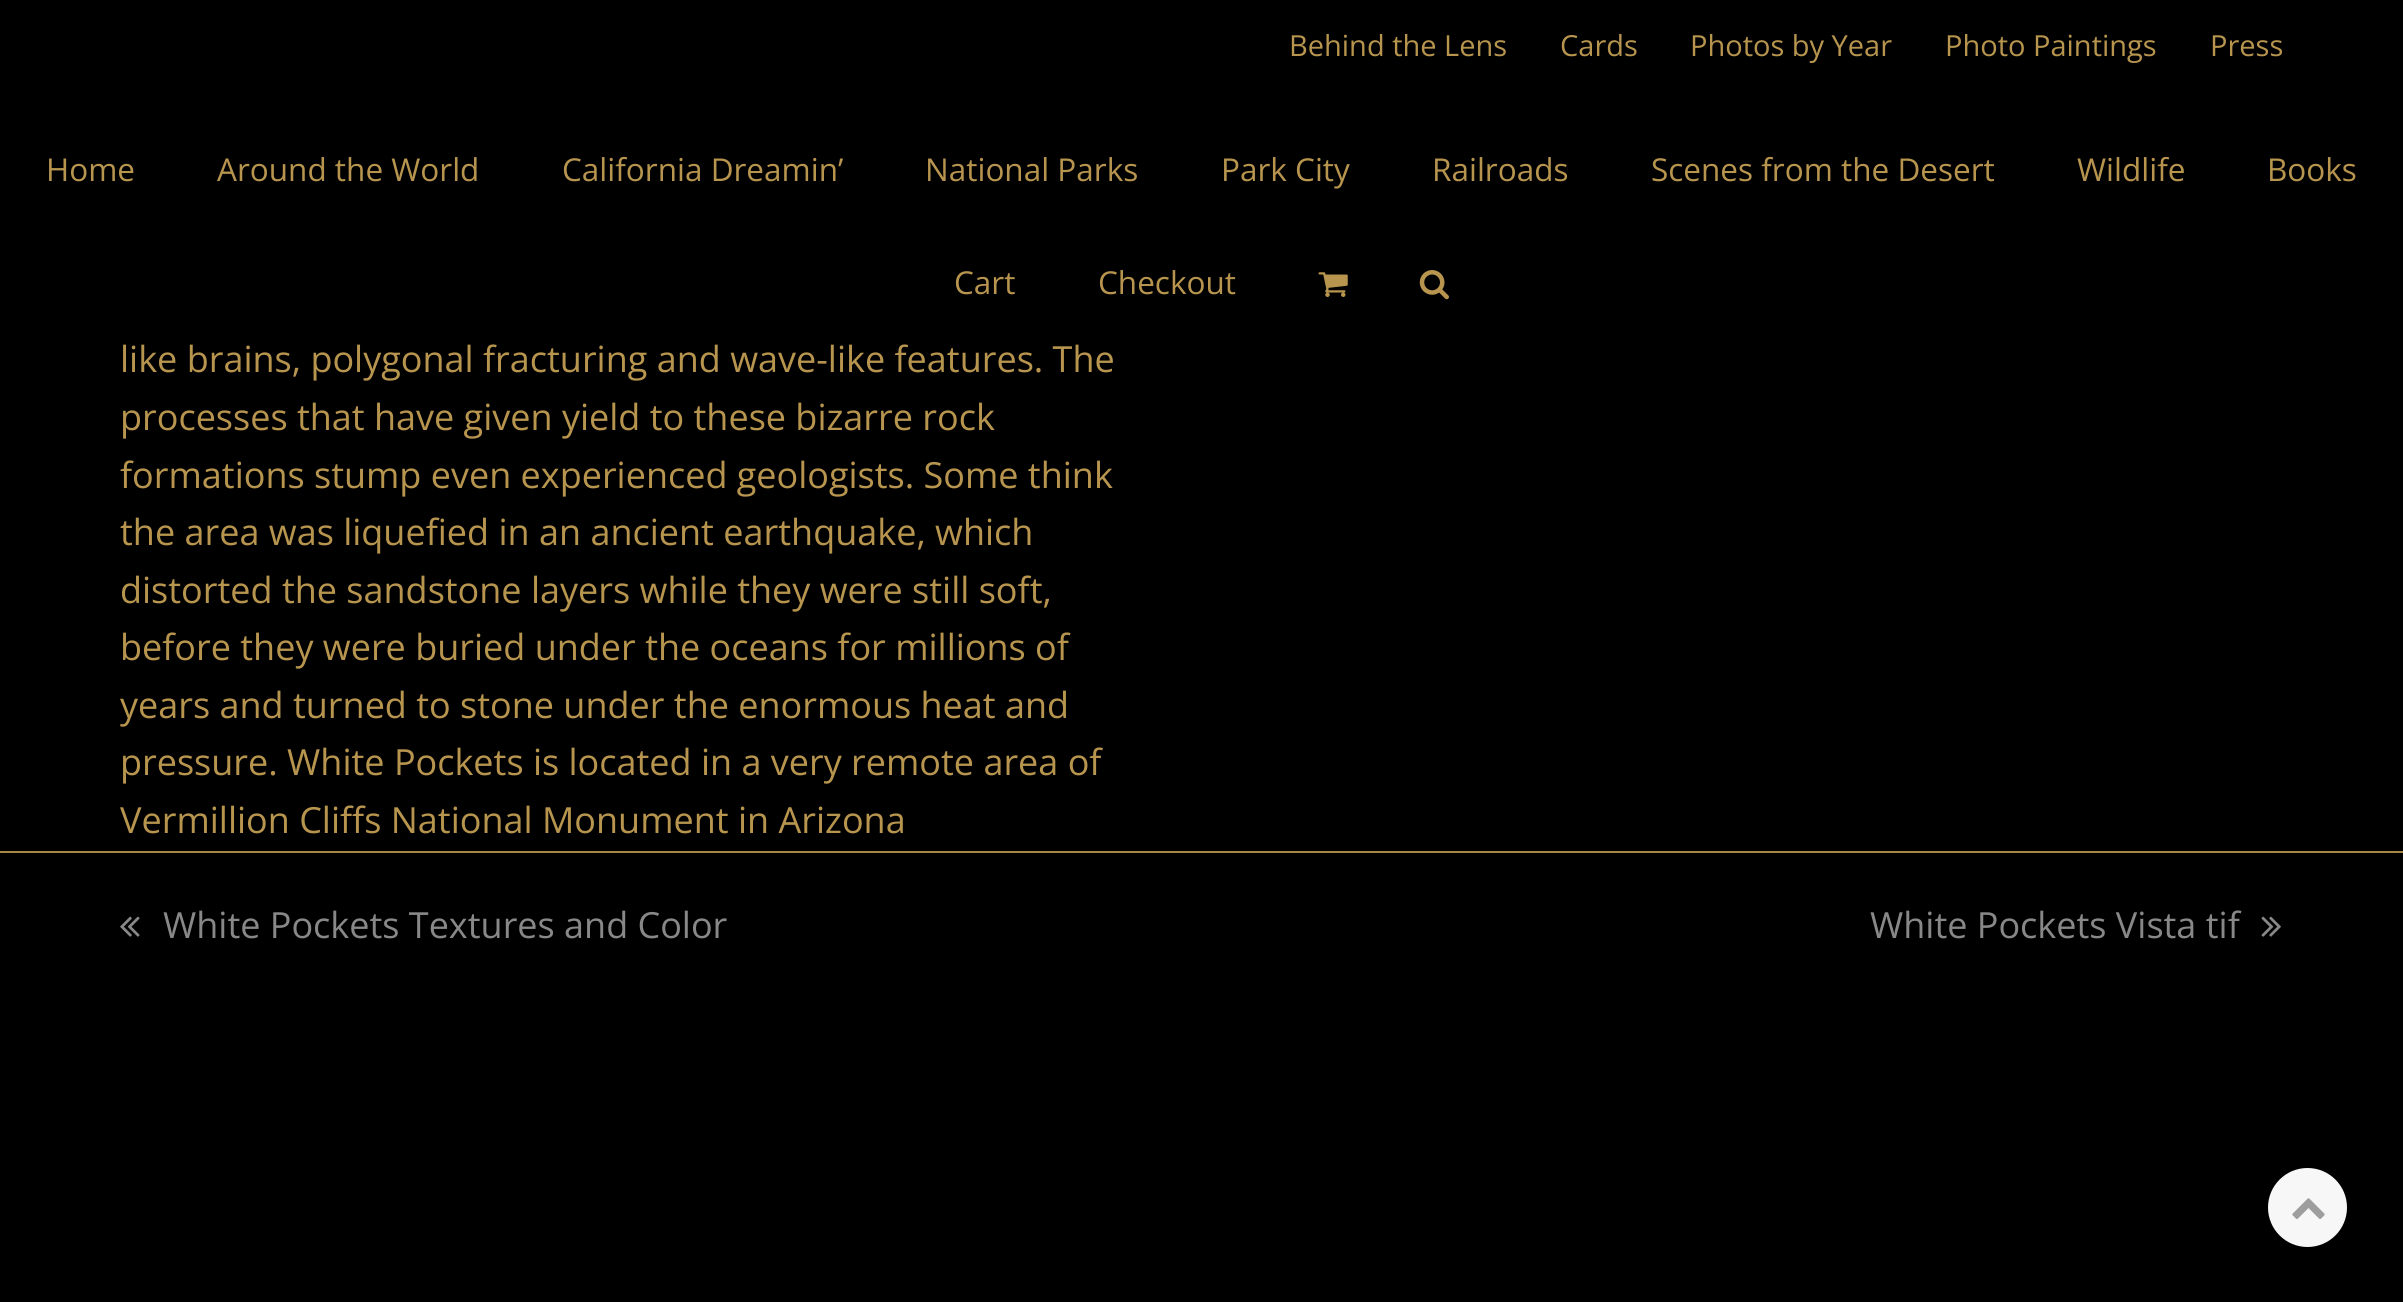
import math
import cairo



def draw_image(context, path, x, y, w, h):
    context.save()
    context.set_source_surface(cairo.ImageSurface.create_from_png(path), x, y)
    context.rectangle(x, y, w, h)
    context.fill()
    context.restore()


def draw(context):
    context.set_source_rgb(0, 0, 0)
    context.paint()
    draw_image(context, "images/1.png", 1318, 272, 30, 25)
    draw_image(context, "images/2.png", 1419, 270, 30, 30)
    context.set_source_rgb(167 / 255, 133 / 255, 69 / 255)
    context.rectangle(0, 851, 2403, 2)
    context.fill()
    draw_image(context, "images/3.png", 120, 916, 20, 21)
    draw_image(context, "images/4.png", 2261, 916, 20, 21)
    context.set_source_rgb(247 / 255, 247 / 255, 247 / 255)
    context.arc(2307.5, 1207.5, 39.5, 0, 2 * math.pi)
    context.fill()
    draw_image(context, "images/5.png", 2292, 1198, 33, 21)
    context.select_font_face("Open Sans")
    context.set_font_size(29)
    context.set_source_rgb(183 / 255, 149 / 255, 78 / 255)
    context.move_to(1289, 56)
    context.show_text("Behind the Lens")
    context.move_to(1560, 56)
    context.show_text("Cards")
    context.move_to(1690, 56)
    context.show_text("Photos by Year")
    context.move_to(1945, 56)
    context.show_text("Photo Paintings")
    context.move_to(2210, 56)
    context.show_text("Press")
    context.set_font_size(31.5)
    context.move_to(46, 181)
    context.show_text("Home")
    context.move_to(217, 181)
    context.show_text("Around the World")
    context.move_to(562, 181)
    context.show_text("California Dreamin’")
    context.move_to(925, 181)
    context.show_text("National Parks")
    context.move_to(1221, 181)
    context.show_text("Park City")
    context.move_to(1432, 181)
    context.show_text("Railroads")
    context.move_to(1651, 181)
    context.show_text("Scenes from the Desert")
    context.move_to(2077, 181)
    context.show_text("Wildlife")
    context.move_to(2267, 181)
    context.show_text("Books")
    context.move_to(954, 294)
    context.show_text("Cart")
    context.move_to(1098, 294)
    context.show_text("Checkout")
    context.set_font_size(36)
    context.move_to(120, 372)
    context.show_text("like brains, polygonal fracturing and wave-like features. The")
    context.move_to(120, 430)
    context.show_text("processes that have given yield to these bizarre rock")
    context.move_to(120, 488)
    context.show_text("formations stump even experienced geologists. Some think")
    context.move_to(120, 545)
    context.show_text("the area was liquefied in an ancient earthquake, which")
    context.move_to(120, 603)
    context.show_text("distorted the sandstone layers while they were still soft,")
    context.move_to(120, 660)
    context.show_text("before they were buried under the oceans for millions of")
    context.move_to(120, 718)
    context.show_text("years and turned to stone under the enormous heat and")
    context.move_to(120, 775)
    context.show_text("pressure. White Pockets is located in a very remote area of")
    context.move_to(120, 833)
    context.show_text("Vermillion Cliffs National Monument in Arizona")
    context.set_source_rgb(136 / 255, 136 / 255, 136 / 255)
    context.move_to(163, 938)
    context.show_text("White Pockets Textures and Color")
    context.move_to(1870, 938)
    context.show_text("White Pockets Vista tif")


surface = cairo.ImageSurface(cairo.Format.RGB24, 2403, 1302)
context = cairo.Context(surface)
options = cairo.FontOptions()
options.set_hint_metrics(cairo.HintMetrics.OFF)
options.set_hint_style(cairo.HintStyle.NONE)
context.set_font_options(options)
context.set_miter_limit(4)
draw(context)
surface.write_to_png("out.png")
